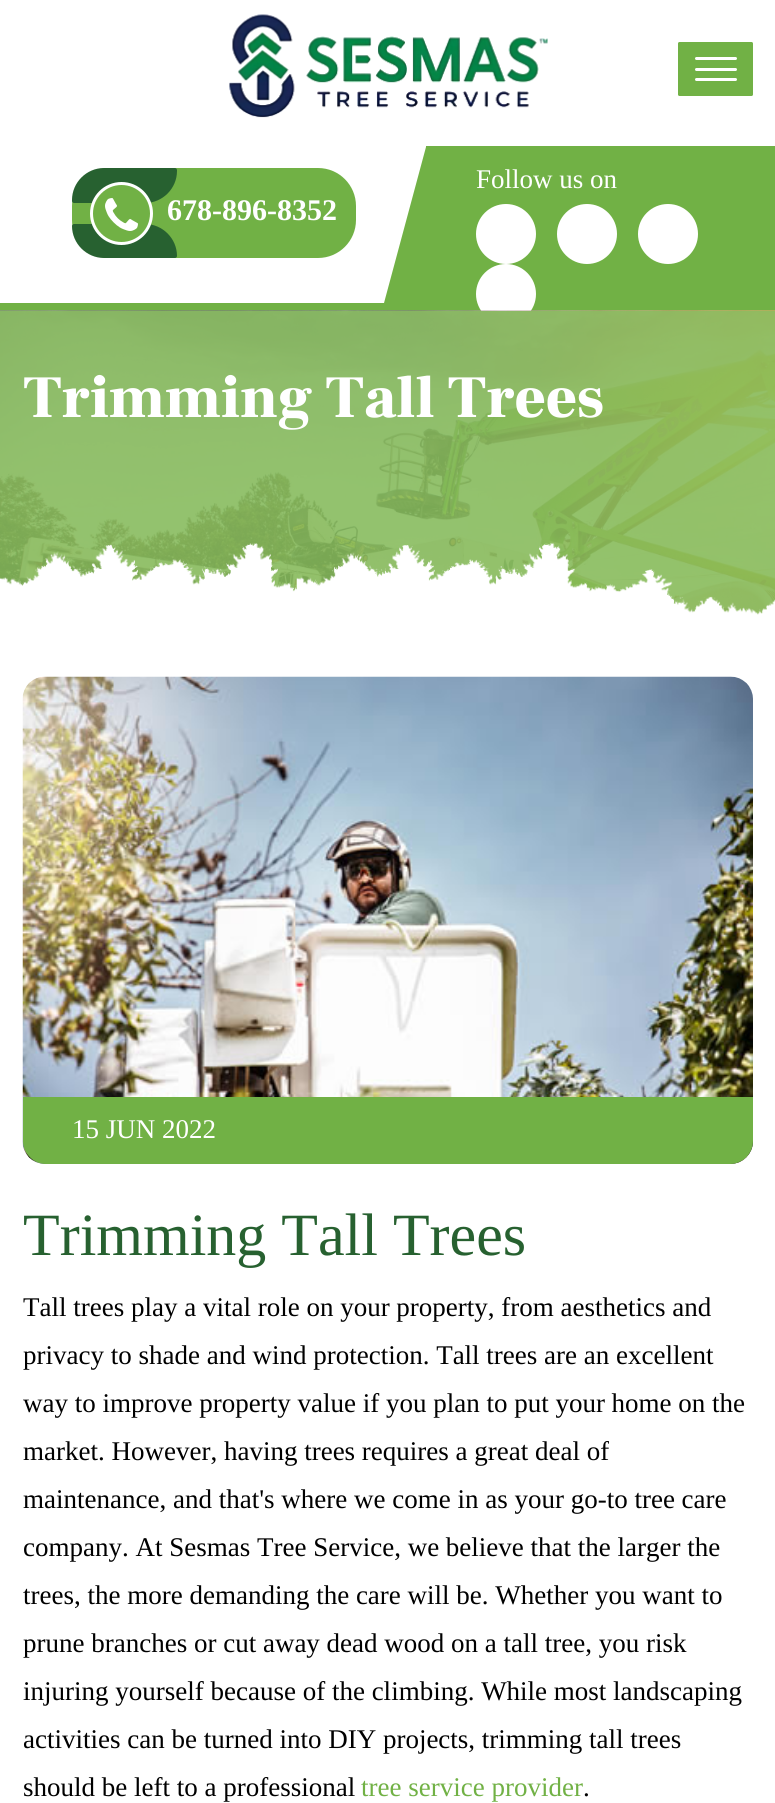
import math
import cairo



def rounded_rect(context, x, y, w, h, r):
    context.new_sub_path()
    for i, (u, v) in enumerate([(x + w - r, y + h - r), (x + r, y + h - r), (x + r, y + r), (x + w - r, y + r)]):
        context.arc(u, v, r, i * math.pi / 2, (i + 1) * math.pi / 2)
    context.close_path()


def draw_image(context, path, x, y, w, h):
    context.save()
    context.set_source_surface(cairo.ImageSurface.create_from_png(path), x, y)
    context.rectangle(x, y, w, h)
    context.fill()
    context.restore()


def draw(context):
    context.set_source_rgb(1, 1, 1)
    context.paint()
    draw_image(context, "images/1.png", 229, 14, 319, 104)
    context.set_source_rgb(113 / 255, 177 / 255, 69 / 255)
    rounded_rect(context, 678, 42, 75, 54, 1.5)
    context.fill()
    context.set_source_rgb(1, 1, 1)
    rounded_rect(context, 695, 57, 42, 3, 1.5)
    context.fill()
    rounded_rect(context, 695, 68, 42, 3, 1.5)
    context.fill()
    rounded_rect(context, 695, 78, 42, 3, 1.5)
    context.fill()
    context.set_source_rgb(113 / 255, 177 / 255, 69 / 255)
    context.rectangle(0, 146, 775, 165)
    context.fill()
    context.set_source_rgb(1, 1, 1)
    context.arc(506, 234, 30, 0, 2 * math.pi)
    context.fill()
    context.arc(587, 234, 30, 0, 2 * math.pi)
    context.fill()
    context.arc(668, 234, 30, 0, 2 * math.pi)
    context.fill()
    context.arc(506, 294, 30, 0, 2 * math.pi)
    context.fill()
    context.new_path()
    context.move_to(0, 146)
    context.line_to(0, 303)
    context.line_to(384, 303)
    context.line_to(426, 147)
    context.line_to(426, 146)
    context.close_path()
    context.fill()
    context.set_source_rgb(113 / 255, 177 / 255, 69 / 255)
    rounded_rect(context, 72, 168, 284, 90, 38)
    context.fill()
    context.set_source_rgb(39 / 255, 97 / 255, 48 / 255)
    context.new_path()
    context.move_to(104, 168)
    context.line_to(175, 168)
    context.curve_to(176, 168, 177, 169, 177, 170)
    context.line_to(177, 171)
    context.curve_to(177, 188.5, 162.5, 203, 145, 203)
    context.line_to(74, 203)
    context.curve_to(73, 203, 72, 202, 72, 201)
    context.line_to(72, 200)
    context.curve_to(72, 182.5, 86.5, 168, 104, 168)
    context.close_path()
    context.fill()
    context.new_path()
    context.move_to(74, 224)
    context.line_to(145, 224)
    context.curve_to(162.5, 224, 177, 238.5, 177, 256)
    context.curve_to(177, 257, 176, 258, 175, 258)
    context.line_to(104, 258)
    context.curve_to(86.5, 258, 72, 243.5, 72, 226)
    context.curve_to(72, 225, 73, 224, 74, 224)
    context.close_path()
    context.fill()
    context.set_source_rgb(113 / 255, 177 / 255, 69 / 255)
    context.arc(121.5, 213.5, 30, 0, 2 * math.pi)
    context.fill_preserve()
    context.set_source_rgb(1, 1, 1)
    context.set_line_width(3)
    context.stroke()
    draw_image(context, "images/2.png", 105, 198, 33, 33)
    draw_image(context, "images/3.png", 0, 310, 775, 305)
    context.set_source_rgba(135 / 255, 188 / 255, 93 / 255, 0.89)
    context.rectangle(0, 311, 775, 304)
    context.fill()
    draw_image(context, "images/4.png", 0, 543, 775, 134)
    draw_image(context, "images/5.png", 22, 676, 731, 488)
    context.set_source_rgb(113 / 255, 177 / 255, 69 / 255)
    context.new_path()
    context.move_to(23, 1097)
    context.line_to(753, 1097)
    context.line_to(753, 1141)
    context.curve_to(753, 1153.5, 742.5, 1164, 730, 1164)
    context.line_to(46, 1164)
    context.curve_to(33.5, 1164, 23, 1153.5, 23, 1141)
    context.close_path()
    context.fill()
    context.select_font_face("Liberation Serif")
    context.set_font_size(27)
    context.set_source_rgb(1, 1, 1)
    context.move_to(476, 188)
    context.show_text("Follow us on")
    context.select_font_face("Liberation Serif", cairo.FontSlant.NORMAL, cairo.FontWeight.BOLD)
    context.set_font_size(30)
    context.move_to(167, 220)
    context.show_text("678-896-8352")
    context.select_font_face("Frank Ruhl Libre Black")
    context.set_font_size(60)
    context.move_to(23, 417)
    context.show_text("Trimming Tall Trees")
    context.select_font_face("Liberation Serif")
    context.set_font_size(27)
    context.move_to(72, 1138)
    context.show_text("15 JUN 2022")
    context.set_font_size(60)
    context.set_source_rgb(39 / 255, 97 / 255, 48 / 255)
    context.move_to(23, 1255)
    context.show_text("Trimming Tall Trees")
    context.set_font_size(27)
    context.set_source_rgb(0, 0, 0)
    context.move_to(23, 1316)
    context.show_text("Tall trees play a vital role on your property, from aesthetics and")
    context.move_to(23, 1364)
    context.show_text("privacy to shade and wind protection. Tall trees are an excellent")
    context.move_to(23, 1412)
    context.show_text("way to improve property value if you plan to put your home on the")
    context.move_to(23, 1460)
    context.show_text("market. However, having trees requires a great deal of")
    context.move_to(23, 1508)
    context.show_text("maintenance, and that's where we come in as your go-to tree care")
    context.move_to(23, 1556)
    context.show_text("company. At Sesmas Tree Service, we believe that the larger the")
    context.move_to(23, 1604)
    context.show_text("trees, the more demanding the care will be. Whether you want to")
    context.move_to(23, 1652)
    context.show_text("prune branches or cut away dead wood on a tall tree, you risk")
    context.move_to(23, 1700)
    context.show_text("injuring yourself because of the climbing. While most landscaping")
    context.move_to(23, 1748)
    context.show_text("activities can be turned into DIY projects, trimming tall trees")
    context.move_to(23, 1796)
    context.show_text("should be left to a professional")
    context.set_source_rgb(113 / 255, 177 / 255, 69 / 255)
    context.move_to(361, 1796)
    context.show_text("tree service provider")
    context.set_source_rgb(0, 0, 0)
    context.move_to(583, 1796)
    context.show_text(".")


surface = cairo.ImageSurface(cairo.Format.RGB24, 775, 1803)
context = cairo.Context(surface)
options = cairo.FontOptions()
options.set_hint_metrics(cairo.HintMetrics.OFF)
options.set_hint_style(cairo.HintStyle.NONE)
context.set_font_options(options)
context.set_miter_limit(4)
draw(context)
surface.write_to_png("out.png")
